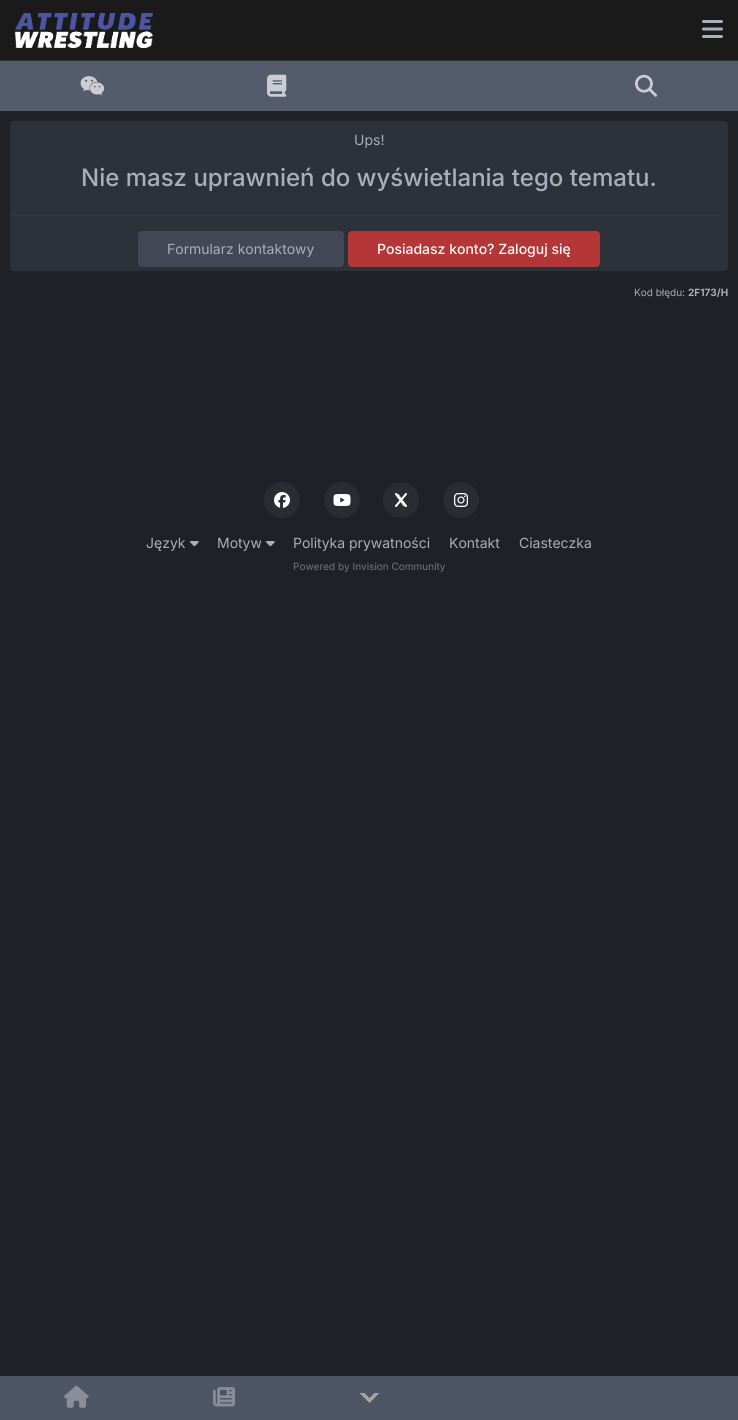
import math
import cairo



def rounded_rect(context, x, y, w, h, r):
    context.new_sub_path()
    for i, (u, v) in enumerate([(x + w - r, y + h - r), (x + r, y + h - r), (x + r, y + r), (x + w - r, y + r)]):
        context.arc(u, v, r, i * math.pi / 2, (i + 1) * math.pi / 2)
    context.close_path()


def draw_image(context, path, x, y, w, h):
    context.save()
    context.set_source_surface(cairo.ImageSurface.create_from_png(path), x, y)
    context.rectangle(x, y, w, h)
    context.fill()
    context.restore()


def draw(context):
    context.set_source_rgb(31 / 255, 33 / 255, 38 / 255)
    context.paint()
    context.set_source_rgb(26 / 255, 26 / 255, 26 / 255)
    context.rectangle(0, 0, 738, 60)
    context.fill()
    context.set_source_rgb(49 / 255, 49 / 255, 49 / 255)
    context.rectangle(0, 60, 738, 1)
    context.fill()
    draw_image(context, "images/1.png", 15, 13, 138, 35)
    draw_image(context, "images/2.png", 702, 20, 21, 18)
    context.set_source_rgb(83 / 255, 91 / 255, 108 / 255)
    context.rectangle(0, 61, 738, 50)
    context.fill()
    draw_image(context, "images/3.png", 80, 76, 25, 20)
    draw_image(context, "images/4.png", 267, 74, 20, 23)
    draw_image(context, "images/5.png", 635, 74, 22, 23)
    context.set_source_rgb(45 / 255, 49 / 255, 57 / 255)
    rounded_rect(context, 10, 121, 718, 150, 4)
    context.fill()
    context.set_source_rgb(55 / 255, 59 / 255, 67 / 255)
    context.rectangle(14, 215, 710, 1)
    context.fill()
    context.set_source_rgb(66 / 255, 72 / 255, 85 / 255)
    rounded_rect(context, 138, 231, 206, 36, 4)
    context.fill()
    context.set_source_rgb(181 / 255, 54 / 255, 54 / 255)
    rounded_rect(context, 348, 231, 252, 36, 4)
    context.fill()
    context.set_source_rgb(42 / 255, 44 / 255, 49 / 255)
    context.arc(282, 500, 18, 0, 2 * math.pi)
    context.fill()
    draw_image(context, "images/6.png", 274, 492, 16, 16)
    context.arc(342, 500, 18, 0, 2 * math.pi)
    context.fill()
    draw_image(context, "images/7.png", 333, 494, 18, 12)
    context.arc(401, 500, 18, 0, 2 * math.pi)
    context.fill()
    draw_image(context, "images/8.png", 395, 494, 12, 13)
    draw_image(context, "images/9.png", 395, 493, 12, 14)
    context.arc(461, 500, 18, 0, 2 * math.pi)
    context.fill()
    draw_image(context, "images/10.png", 454, 493, 14, 14)
    draw_image(context, "images/11.png", 190, 541, 9, 6)
    draw_image(context, "images/11.png", 266, 541, 9, 6)
    context.set_source_rgb(78 / 255, 85 / 255, 101 / 255)
    context.rectangle(0, 1376, 738, 44)
    context.fill()
    draw_image(context, "images/12.png", 64, 1385, 25, 23)
    draw_image(context, "images/13.png", 213, 1387, 22, 20)
    draw_image(context, "images/14.png", 360, 1393, 19, 10)
    context.select_font_face("Inter")
    context.set_font_size(14)
    context.set_source_rgb(169 / 255, 174 / 255, 189 / 255)
    context.move_to(354, 145)
    context.show_text("Ups!")
    context.select_font_face("Inter Medium")
    context.set_font_size(24)
    context.move_to(81, 186)
    context.show_text("Nie masz uprawnień do wyświetlania tego tematu.")
    context.select_font_face("Inter")
    context.set_font_size(14)
    context.move_to(167, 254)
    context.show_text("Formularz kontaktowy")
    context.select_font_face("Inter Medium")
    context.set_source_rgb(251 / 255, 251 / 255, 251 / 255)
    context.move_to(377, 254)
    context.show_text("Posiadasz konto? Zaloguj się")
    context.select_font_face("Inter")
    context.set_font_size(10)
    context.set_source_rgb(169 / 255, 174 / 255, 189 / 255)
    context.move_to(634, 296)
    context.show_text("Kod błędu:")
    context.select_font_face("Inter", cairo.FontSlant.NORMAL, cairo.FontWeight.BOLD)
    context.move_to(688, 296)
    context.show_text("2F173/H")
    context.select_font_face("Inter")
    context.set_font_size(14)
    context.move_to(146, 548)
    context.show_text("Język")
    context.move_to(217, 548)
    context.show_text("Motyw")
    context.move_to(293, 548)
    context.show_text("Polityka prywatności")
    context.move_to(449, 548)
    context.show_text("Kontakt")
    context.move_to(519, 548)
    context.show_text("Ciasteczka")
    context.set_font_size(10)
    context.set_source_rgb(114 / 255, 118 / 255, 129 / 255)
    context.move_to(293, 570)
    context.show_text("Powered by Invision Community")


surface = cairo.ImageSurface(cairo.Format.RGB24, 738, 1420)
context = cairo.Context(surface)
options = cairo.FontOptions()
options.set_hint_metrics(cairo.HintMetrics.OFF)
options.set_hint_style(cairo.HintStyle.NONE)
context.set_font_options(options)
context.set_miter_limit(4)
draw(context)
surface.write_to_png("out.png")
